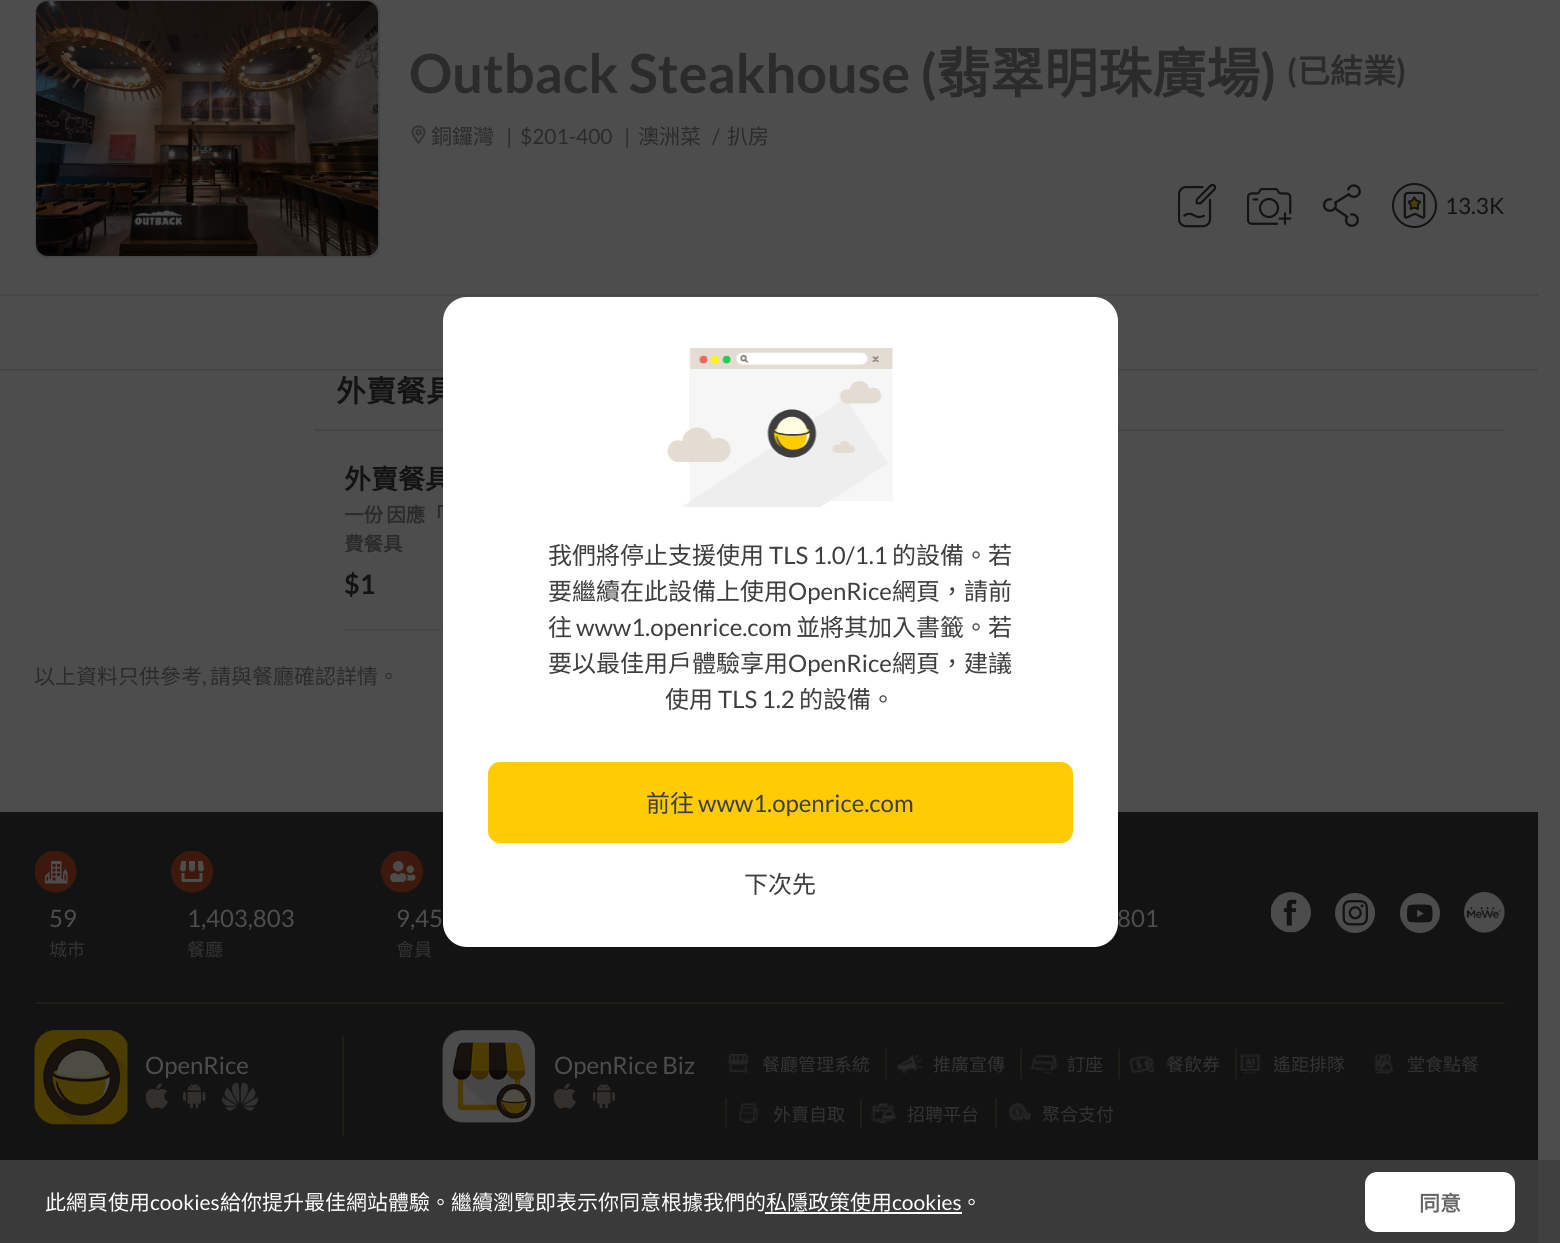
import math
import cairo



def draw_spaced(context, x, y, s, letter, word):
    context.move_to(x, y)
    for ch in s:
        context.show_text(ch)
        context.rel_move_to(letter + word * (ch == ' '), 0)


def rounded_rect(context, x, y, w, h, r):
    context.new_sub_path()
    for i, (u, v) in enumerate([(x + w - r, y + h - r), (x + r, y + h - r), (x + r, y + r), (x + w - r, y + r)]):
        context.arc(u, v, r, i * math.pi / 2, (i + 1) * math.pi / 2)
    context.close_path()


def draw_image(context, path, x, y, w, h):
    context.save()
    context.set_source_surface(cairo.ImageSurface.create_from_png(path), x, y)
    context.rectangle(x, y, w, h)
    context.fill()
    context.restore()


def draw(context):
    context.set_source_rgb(77 / 255, 77 / 255, 77 / 255)
    context.paint()
    context.set_source_rgb(64 / 255, 64 / 255, 64 / 255)
    context.rectangle(1538, 1160, 22, 83)
    context.fill()
    rounded_rect(context, 36, 1, 343, 256, 11)
    context.set_source_rgb(69 / 255, 69 / 255, 69 / 255)
    context.stroke()
    draw_image(context, "images/1.png", 36, 1, 342, 255)
    draw_image(context, "images/2.png", 411, 125, 15, 19)
    draw_image(context, "images/3.png", 1178, 183, 39, 45)
    draw_image(context, "images/4.png", 1247, 188, 45, 37)
    draw_image(context, "images/5.png", 1322, 184, 39, 43)
    context.arc(1414.5, 205.5, 21.5, 0, 2 * math.pi)
    context.set_source_rgb(19 / 255, 19 / 255, 19 / 255)
    context.stroke()
    draw_image(context, "images/6.png", 1403, 191, 23, 28)
    context.set_source_rgb(69 / 255, 69 / 255, 69 / 255)
    context.new_path()
    context.move_to(0, 369)
    context.line_to(0, 371)
    context.line_to(1538, 371)
    context.line_to(1538, 296)
    context.line_to(1538, 369)
    context.close_path()
    context.fill()
    context.rectangle(0, 294, 1538, 2)
    context.fill()
    context.rectangle(314, 429, 1191, 2)
    context.fill()
    context.rectangle(344, 629, 99, 1)
    context.fill()
    context.set_source_rgb(19 / 255, 19 / 255, 19 / 255)
    context.rectangle(0, 812, 1538, 348)
    context.fill()
    context.set_source_rgb(58 / 255, 58 / 255, 58 / 255)
    context.rectangle(0, 1160, 1538, 83)
    context.fill()
    draw_image(context, "images/8.png", 35, 851, 42, 42)
    draw_image(context, "images/9.png", 171, 851, 42, 42)
    draw_image(context, "images/10.png", 381, 851, 42, 42)
    draw_image(context, "images/11.png", 1271, 892, 40, 41)
    draw_image(context, "images/12.png", 1335, 893, 40, 40)
    draw_image(context, "images/13.png", 1400, 893, 40, 40)
    draw_image(context, "images/14.png", 1464, 892, 41, 41)
    context.set_source_rgb(32 / 255, 28 / 255, 24 / 255)
    context.rectangle(35, 1002, 1470, 2)
    context.fill()
    draw_image(context, "images/15.png", 34, 1030, 94, 95)
    draw_image(context, "images/16.png", 146, 1083, 22, 26)
    draw_image(context, "images/17.png", 183, 1083, 23, 26)
    draw_image(context, "images/18.png", 222, 1082, 36, 29)
    context.rectangle(342, 1035, 2, 101)
    context.fill()
    draw_image(context, "images/19.png", 442, 1030, 94, 93)
    draw_image(context, "images/16.png", 554, 1083, 22, 26)
    draw_image(context, "images/20.png", 593, 1083, 22, 26)
    draw_image(context, "images/21.png", 727, 1054, 22, 20)
    context.rectangle(885, 1049, 2, 30)
    context.fill()
    draw_image(context, "images/22.png", 896, 1054, 27, 20)
    context.rectangle(1020, 1049, 2, 30)
    context.fill()
    draw_image(context, "images/23.png", 1030, 1054, 28, 20)
    context.rectangle(1118, 1049, 2, 30)
    context.fill()
    draw_image(context, "images/24.png", 1129, 1055, 26, 19)
    context.rectangle(1235, 1049, 2, 30)
    context.fill()
    draw_image(context, "images/25.png", 1240, 1054, 21, 20)
    draw_image(context, "images/26.png", 1373, 1054, 21, 20)
    context.rectangle(725, 1098, 2, 30)
    context.fill()
    draw_image(context, "images/27.png", 739, 1103, 19, 20)
    context.rectangle(860, 1098, 2, 30)
    context.fill()
    draw_image(context, "images/28.png", 871, 1103, 26, 20)
    context.rectangle(995, 1098, 2, 30)
    context.fill()
    draw_image(context, "images/29.png", 1008, 1103, 23, 19)
    context.set_source_rgb(1, 1, 1)
    context.rectangle(765, 1212, 197, 2)
    context.fill()
    rounded_rect(context, 1365, 1172, 150, 60, 12)
    context.fill()
    context.select_font_face("Lato", cairo.FontSlant.NORMAL, cairo.FontWeight.BOLD)
    context.set_font_size(54)
    context.set_source_rgb(43 / 255, 43 / 255, 43 / 255)
    context.move_to(409, 93)
    context.show_text("Outback Steakhouse (")
    context.select_font_face("Noto Sans CJK HK", cairo.FontSlant.NORMAL, cairo.FontWeight.BOLD)
    context.move_to(936, 93)
    context.show_text("翡翠明珠廣場")
    context.select_font_face("Lato", cairo.FontSlant.NORMAL, cairo.FontWeight.BOLD)
    context.move_to(1260, 93)
    context.show_text(")")
    context.set_font_size(33)
    context.move_to(1287, 83)
    context.show_text("(")
    context.select_font_face("Noto Sans CJK HK", cairo.FontSlant.NORMAL, cairo.FontWeight.BOLD)
    context.move_to(1297, 83)
    context.show_text("已結業")
    context.select_font_face("Lato", cairo.FontSlant.NORMAL, cairo.FontWeight.BOLD)
    context.move_to(1396, 83)
    context.show_text(")")
    context.select_font_face("Noto Sans CJK HK")
    context.set_font_size(21)
    context.move_to(431, 144)
    context.show_text("銅鑼灣")
    context.select_font_face("Lato")
    context.move_to(506, 144)
    context.show_text("|")
    context.move_to(520, 144)
    context.show_text("$201-400")
    context.move_to(624, 144)
    context.show_text("|")
    context.select_font_face("Noto Sans CJK HK")
    context.move_to(638, 144)
    context.show_text("澳洲菜")
    context.select_font_face("Lato")
    context.move_to(712, 144)
    context.show_text("/")
    context.select_font_face("Noto Sans CJK HK")
    context.move_to(727, 144)
    context.show_text("扒房")
    context.select_font_face("Lato")
    context.set_font_size(22.5)
    context.set_source_rgb(19 / 255, 19 / 255, 19 / 255)
    context.move_to(1445, 214)
    context.show_text("13.3K")
    context.select_font_face("Noto Sans CJK HK", cairo.FontSlant.NORMAL, cairo.FontWeight.BOLD)
    context.set_font_size(30)
    context.move_to(336, 402)
    context.show_text("外賣餐具")
    context.set_font_size(27)
    context.move_to(344, 489)
    context.show_text("外賣餐具")
    context.set_font_size(19.5)
    context.set_source_rgb(43 / 255, 43 / 255, 43 / 255)
    draw_spaced(context, 344, 522, "一份 因應「", 0, -1)
    context.move_to(344, 551)
    context.show_text("費餐具")
    context.select_font_face("Lato", cairo.FontSlant.NORMAL, cairo.FontWeight.BOLD)
    context.set_font_size(27)
    context.set_source_rgb(19 / 255, 19 / 255, 19 / 255)
    context.move_to(344, 594)
    context.show_text("$1")
    context.select_font_face("Noto Sans CJK HK")
    context.set_font_size(21)
    context.set_source_rgb(43 / 255, 43 / 255, 43 / 255)
    context.move_to(34, 684)
    context.show_text("以上資料只供參考")
    context.select_font_face("Lato")
    context.move_to(202, 684)
    context.show_text(",")
    context.select_font_face("Noto Sans CJK HK")
    context.move_to(210, 684)
    context.show_text("請與餐廳確認詳情。")
    context.set_source_rgb(1, 1, 1)
    rounded_rect(context, 443, 297, 675, 650, 24)
    context.fill()
    draw_image(context, "images/7.png", 667, 348, 226, 159)
    context.set_font_size(24)
    context.set_source_rgb(62 / 255, 62 / 255, 62 / 255)
    context.move_to(548, 564)
    context.show_text("我們將停止支援使用")
    context.select_font_face("Lato")
    context.move_to(769, 564)
    context.show_text("TLS 1.0/1.1")
    context.select_font_face("Noto Sans CJK HK")
    context.move_to(892, 564)
    context.show_text("的設備。若")
    context.move_to(548, 600)
    context.show_text("要繼續在此設備上使用")
    context.select_font_face("Lato")
    context.move_to(788, 600)
    context.show_text("OpenRice")
    context.select_font_face("Noto Sans CJK HK")
    context.move_to(892, 600)
    context.show_text("網頁，請前")
    context.move_to(548, 636)
    context.show_text("往")
    context.select_font_face("Lato")
    context.move_to(576, 636)
    context.show_text("www1.openrice.com")
    context.select_font_face("Noto Sans CJK HK")
    context.move_to(796, 636)
    context.show_text("並將其加入書籤。若")
    context.move_to(548, 672)
    context.show_text("要以最佳用戶體驗享用")
    context.select_font_face("Lato")
    context.move_to(788, 672)
    context.show_text("OpenRice")
    context.select_font_face("Noto Sans CJK HK")
    context.move_to(892, 672)
    context.show_text("網頁，建議")
    context.move_to(665, 708)
    context.show_text("使用")
    context.select_font_face("Lato")
    context.move_to(718, 708)
    context.show_text("TLS 1.2")
    context.select_font_face("Noto Sans CJK HK")
    context.move_to(799, 708)
    context.show_text("的設備。")
    context.set_source_rgb(1, 203 / 255, 5 / 255)
    rounded_rect(context, 488, 762, 585, 81, 12)
    context.fill()
    context.set_source_rgb(62 / 255, 62 / 255, 62 / 255)
    context.move_to(646, 812)
    context.show_text("前往")
    context.select_font_face("Lato")
    context.move_to(698, 812)
    context.show_text("www1.openrice.com")
    context.select_font_face("Noto Sans CJK HK")
    context.move_to(744, 893)
    context.show_text("下次先")
    context.select_font_face("Lato")
    context.set_source_rgb(77 / 255, 77 / 255, 77 / 255)
    context.move_to(49, 927)
    context.show_text("59")
    context.select_font_face("Noto Sans CJK HK")
    context.set_font_size(18)
    context.set_source_rgb(51 / 255, 51 / 255, 51 / 255)
    context.move_to(49, 956)
    context.show_text("城市")
    context.select_font_face("Lato")
    context.set_font_size(24)
    context.set_source_rgb(77 / 255, 77 / 255, 77 / 255)
    context.move_to(187, 927)
    context.show_text("1,403,803")
    context.select_font_face("Noto Sans CJK HK")
    context.set_font_size(18)
    context.set_source_rgb(51 / 255, 51 / 255, 51 / 255)
    context.move_to(187, 956)
    context.show_text("餐廳")
    context.select_font_face("Lato")
    context.set_font_size(24)
    context.set_source_rgb(77 / 255, 77 / 255, 77 / 255)
    context.move_to(396, 927)
    context.show_text("9,45")
    context.select_font_face("Noto Sans CJK HK")
    context.set_font_size(18)
    context.set_source_rgb(51 / 255, 51 / 255, 51 / 255)
    context.move_to(396, 956)
    context.show_text("會員")
    context.select_font_face("Lato")
    context.set_font_size(24)
    context.set_source_rgb(77 / 255, 77 / 255, 77 / 255)
    context.move_to(1117, 927)
    context.show_text("801")
    context.move_to(145, 1074)
    context.show_text("OpenRice")
    context.move_to(554, 1074)
    context.show_text("OpenRice Biz")
    context.select_font_face("Noto Sans CJK HK")
    context.set_font_size(18)
    context.set_source_rgb(51 / 255, 51 / 255, 51 / 255)
    context.move_to(762, 1071)
    context.show_text("餐廳管理系統")
    context.move_to(933, 1071)
    context.show_text("推廣宣傳")
    context.move_to(1067, 1071)
    context.show_text("訂座")
    context.move_to(1166, 1071)
    context.show_text("餐飲券")
    context.move_to(1273, 1071)
    context.show_text("遙距排隊")
    context.move_to(1407, 1071)
    context.show_text("堂食點餐")
    context.move_to(773, 1121)
    context.show_text("外賣自取")
    context.move_to(907, 1121)
    context.show_text("招聘平台")
    context.move_to(1042, 1121)
    context.show_text("聚合支付")
    context.set_font_size(21)
    context.set_source_rgb(1, 1, 1)
    context.move_to(45, 1210)
    context.show_text("此網頁使用")
    context.select_font_face("Lato")
    context.move_to(150, 1210)
    context.show_text("cookies")
    context.select_font_face("Noto Sans CJK HK")
    context.move_to(220, 1210)
    context.show_text("給你提升最佳網站體驗。繼續瀏覽即表示你同意根據我們的私隱政策使用")
    context.select_font_face("Lato")
    context.move_to(892, 1210)
    context.show_text("cookies")
    context.select_font_face("Noto Sans CJK HK")
    context.move_to(961, 1210)
    context.show_text("。")
    context.select_font_face("Noto Sans CJK HK", cairo.FontSlant.NORMAL, cairo.FontWeight.BOLD)
    context.set_source_rgb(102 / 255, 102 / 255, 102 / 255)
    context.move_to(1419, 1211)
    context.show_text("同意")


surface = cairo.ImageSurface(cairo.Format.RGB24, 1560, 1243)
context = cairo.Context(surface)
options = cairo.FontOptions()
options.set_hint_metrics(cairo.HintMetrics.OFF)
options.set_hint_style(cairo.HintStyle.NONE)
context.set_font_options(options)
context.set_miter_limit(4)
draw(context)
surface.write_to_png("out.png")
